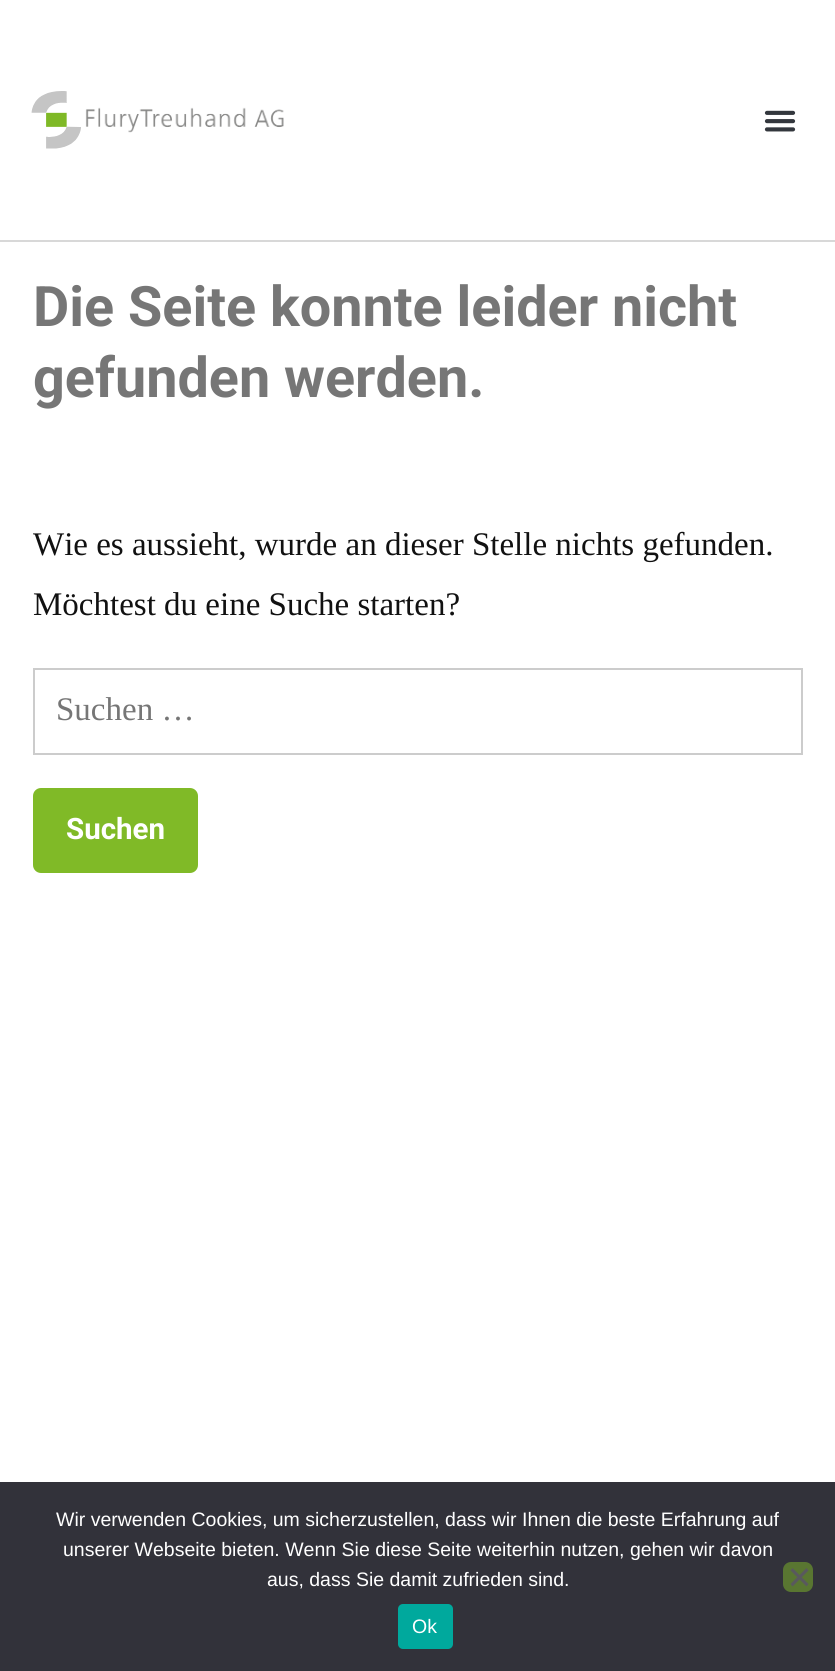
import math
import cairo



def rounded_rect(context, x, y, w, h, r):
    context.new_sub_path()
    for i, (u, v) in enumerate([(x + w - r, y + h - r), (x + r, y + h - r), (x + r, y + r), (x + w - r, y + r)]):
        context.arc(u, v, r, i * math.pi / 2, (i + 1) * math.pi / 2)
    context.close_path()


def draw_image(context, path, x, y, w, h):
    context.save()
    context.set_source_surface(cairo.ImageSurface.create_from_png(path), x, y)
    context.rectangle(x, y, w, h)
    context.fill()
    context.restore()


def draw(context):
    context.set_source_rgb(1, 1, 1)
    context.paint()
    context.set_source_rgb(216 / 255, 216 / 255, 216 / 255)
    context.rectangle(0, 240, 835, 2)
    context.fill()
    draw_image(context, "images/1.png", 31, 91, 253, 58)
    draw_image(context, "images/2.png", 764, 110, 32, 22)
    context.rectangle(34, 669, 768, 85)
    context.set_source_rgb(204 / 255, 204 / 255, 204 / 255)
    context.stroke()
    context.set_source_rgb(128 / 255, 186 / 255, 39 / 255)
    rounded_rect(context, 33, 788, 165, 85, 8)
    context.fill()
    context.set_source_rgb(50 / 255, 50 / 255, 58 / 255)
    context.rectangle(0, 1482, 835, 189)
    context.fill()
    context.set_source_rgb(89 / 255, 118 / 255, 49 / 255)
    rounded_rect(context, 783, 1562, 30, 30, 8)
    context.fill()
    context.set_source_rgb(89 / 255, 89 / 255, 93 / 255)
    context.new_path()
    context.move_to(806.5, 1568)
    context.line_to(808.5, 1570.5)
    context.line_to(792.5, 1586.5)
    context.line_to(790.5, 1584)
    context.close_path()
    context.fill()
    context.new_path()
    context.move_to(790.5, 1570.5)
    context.line_to(792.5, 1568)
    context.line_to(808.5, 1584)
    context.line_to(806.5, 1586.5)
    context.close_path()
    context.fill()
    context.set_source_rgb(0, 169 / 255, 157 / 255)
    rounded_rect(context, 398, 1604, 55, 45, 5)
    context.fill()
    context.select_font_face("Roboto", cairo.FontSlant.NORMAL, cairo.FontWeight.BOLD)
    context.set_font_size(55.75)
    context.set_source_rgb(118 / 255, 118 / 255, 118 / 255)
    context.move_to(33, 326)
    context.show_text("Die Seite konnte leider nicht")
    context.move_to(33, 397)
    context.show_text("gefunden werden.")
    context.select_font_face("Liberation Serif")
    context.set_font_size(33)
    context.set_source_rgb(17 / 255, 17 / 255, 17 / 255)
    context.move_to(33, 555)
    context.show_text("Wie es aussieht, wurde an dieser Stelle nichts gefunden.")
    context.move_to(33, 615)
    context.show_text("Möchtest du eine Suche starten?")
    context.set_source_rgb(118 / 255, 118 / 255, 118 / 255)
    context.move_to(56, 720)
    context.show_text("Suchen …")
    context.select_font_face("Roboto", cairo.FontSlant.NORMAL, cairo.FontWeight.BOLD)
    context.set_font_size(29.5)
    context.set_source_rgb(1, 1, 1)
    context.move_to(66, 839)
    context.show_text("Suchen")
    context.select_font_face("Liberation Sans")
    context.set_font_size(19.5)
    context.move_to(56, 1526)
    context.show_text("Wir verwenden Cookies, um sicherzustellen, dass wir Ihnen die beste Erfahrung auf")
    context.move_to(63, 1556)
    context.show_text("unserer Webseite bieten. Wenn Sie diese Seite weiterhin nutzen, gehen wir davon")
    context.move_to(267, 1586)
    context.show_text("aus, dass Sie damit zufrieden sind.")
    context.move_to(412, 1633)
    context.show_text("Ok")


surface = cairo.ImageSurface(cairo.Format.RGB24, 835, 1671)
context = cairo.Context(surface)
options = cairo.FontOptions()
options.set_hint_metrics(cairo.HintMetrics.OFF)
options.set_hint_style(cairo.HintStyle.NONE)
context.set_font_options(options)
context.set_miter_limit(4)
draw(context)
surface.write_to_png("out.png")
